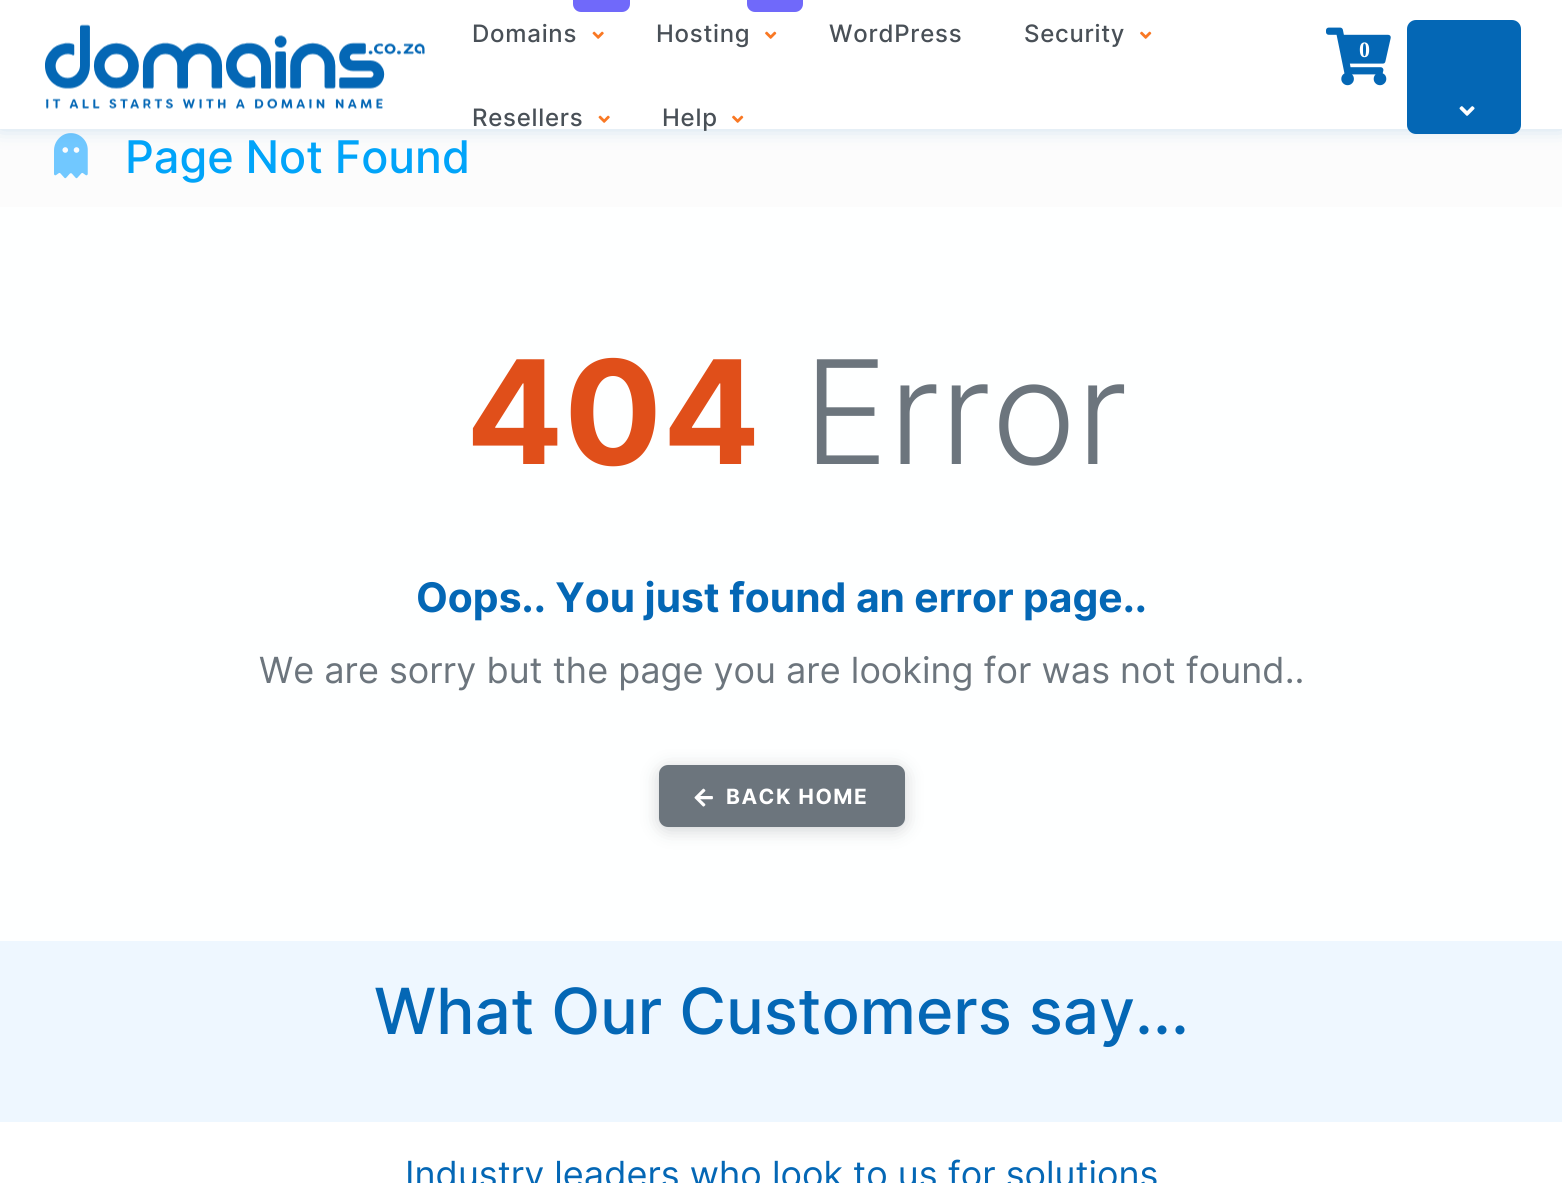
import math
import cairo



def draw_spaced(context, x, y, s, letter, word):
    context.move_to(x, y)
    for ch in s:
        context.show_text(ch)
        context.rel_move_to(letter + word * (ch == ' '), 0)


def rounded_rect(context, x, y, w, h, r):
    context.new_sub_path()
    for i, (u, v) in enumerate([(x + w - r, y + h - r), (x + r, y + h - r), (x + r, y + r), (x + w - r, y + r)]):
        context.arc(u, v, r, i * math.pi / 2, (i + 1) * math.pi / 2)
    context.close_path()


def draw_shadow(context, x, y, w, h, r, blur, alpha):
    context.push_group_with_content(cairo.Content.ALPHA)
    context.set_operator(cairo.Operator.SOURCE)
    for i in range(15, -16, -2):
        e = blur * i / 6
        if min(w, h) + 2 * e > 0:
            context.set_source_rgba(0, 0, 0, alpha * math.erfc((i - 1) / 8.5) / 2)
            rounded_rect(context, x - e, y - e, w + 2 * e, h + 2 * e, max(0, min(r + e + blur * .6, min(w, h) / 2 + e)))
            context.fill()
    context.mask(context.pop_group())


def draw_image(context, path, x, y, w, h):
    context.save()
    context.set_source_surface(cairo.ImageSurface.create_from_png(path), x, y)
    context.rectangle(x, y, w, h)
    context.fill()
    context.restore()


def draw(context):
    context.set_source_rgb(252 / 255, 252 / 255, 252 / 255)
    context.paint()
    draw_image(context, "images/6.png", 54, 133, 34, 46)
    context.set_source_rgb(4 / 255, 103 / 255, 181 / 255)
    draw_shadow(context, 0, -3, 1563, 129, 0, 11, 0.24)
    context.set_source_rgb(1, 1, 1)
    context.rectangle(0, 0, 1562, 129)
    context.fill()
    draw_image(context, "images/1.png", 45, 24, 380, 85)
    draw_image(context, "images/2.png", 592, 31, 12, 8)
    context.set_source_rgb(112 / 255, 105 / 255, 250 / 255)
    rounded_rect(context, 573, -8, 57, 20, 8)
    context.fill()
    draw_image(context, "images/3.png", 765, 31, 12, 8)
    rounded_rect(context, 747, -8, 56, 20, 8)
    context.fill()
    draw_image(context, "images/3.png", 1140, 31, 12, 8)
    draw_image(context, "images/2.png", 598, 115, 12, 8)
    draw_image(context, "images/3.png", 732, 115, 12, 8)
    draw_image(context, "images/4.png", 1326, 27, 65, 59)
    context.set_source_rgb(4 / 255, 103 / 255, 181 / 255)
    rounded_rect(context, 1407, 20, 114, 114, 9)
    context.fill()
    draw_image(context, "images/5.png", 1459, 106, 16, 10)
    context.set_source_rgb(254 / 255, 1, 1)
    context.rectangle(0, 207, 1562, 734)
    context.fill()
    context.set_source_rgb(73 / 255, 79 / 255, 84 / 255)
    draw_shadow(context, 659, 768, 246, 62, 9, 9, 0.25)
    context.set_source_rgb(108 / 255, 117 / 255, 125 / 255)
    rounded_rect(context, 659, 765, 246, 62, 9)
    context.fill()
    draw_image(context, "images/7.png", 694, 788, 19, 19)
    context.set_source_rgb(238 / 255, 247 / 255, 1)
    context.rectangle(0, 941, 1562, 181)
    context.fill()
    context.set_source_rgb(1, 1, 1)
    context.rectangle(0, 1122, 1562, 61)
    context.fill()
    context.select_font_face("Inter Medium")
    context.set_font_size(24)
    context.set_source_rgb(73 / 255, 80 / 255, 87 / 255)
    draw_spaced(context, 472, 42, "Domains", 0.75, 0)
    draw_spaced(context, 656, 42, "Hosting", 0.75, 0)
    draw_spaced(context, 829, 42, "WordPress", 0.75, 0)
    draw_spaced(context, 1024, 42, "Security", 0.75, 0)
    draw_spaced(context, 472, 126, "Resellers", 0.75, 0)
    draw_spaced(context, 662, 126, "Help", 0.75, 0)
    context.select_font_face("Liberation Serif", cairo.FontSlant.NORMAL, cairo.FontWeight.BOLD)
    context.set_font_size(22)
    context.set_source_rgb(1, 1, 1)
    context.move_to(1359, 57)
    context.show_text("0")
    context.select_font_face("Inter Medium")
    context.set_font_size(45)
    context.set_source_rgb(1 / 255, 164 / 255, 249 / 255)
    context.move_to(125, 173)
    context.show_text("Page Not Found")
    context.select_font_face("Inter", cairo.FontSlant.NORMAL, cairo.FontWeight.BOLD)
    context.set_font_size(144)
    context.set_source_rgb(224 / 255, 79 / 255, 26 / 255)
    context.move_to(466, 464)
    context.show_text("404")
    context.select_font_face("Inter Light")
    context.set_source_rgb(108 / 255, 117 / 255, 125 / 255)
    context.move_to(803, 464)
    context.show_text("Error")
    context.select_font_face("Inter", cairo.FontSlant.NORMAL, cairo.FontWeight.BOLD)
    context.set_font_size(40.75)
    context.set_source_rgb(4 / 255, 103 / 255, 181 / 255)
    context.move_to(416, 612)
    context.show_text("Oops.. You just found an error page..")
    context.select_font_face("Inter")
    context.set_font_size(36)
    context.set_source_rgb(108 / 255, 117 / 255, 125 / 255)
    context.move_to(259, 683)
    context.show_text("We are sorry but the page you are looking for was not found..")
    context.select_font_face("Inter", cairo.FontSlant.NORMAL, cairo.FontWeight.BOLD)
    context.set_font_size(21)
    context.set_source_rgb(1, 1, 1)
    draw_spaced(context, 726, 804, "BACK HOME", 1.5, 0)
    context.select_font_face("Inter Medium")
    context.set_font_size(63.6)
    context.set_source_rgb(4 / 255, 103 / 255, 181 / 255)
    context.move_to(374, 1034)
    context.show_text("What Our Customers say...")
    context.select_font_face("Inter")
    context.set_font_size(36)
    context.move_to(405, 1187)
    context.show_text("Industry leaders who look to us for solutions")


surface = cairo.ImageSurface(cairo.Format.RGB24, 1562, 1183)
context = cairo.Context(surface)
options = cairo.FontOptions()
options.set_hint_metrics(cairo.HintMetrics.OFF)
options.set_hint_style(cairo.HintStyle.NONE)
context.set_font_options(options)
context.set_miter_limit(4)
draw(context)
surface.write_to_png("out.png")
